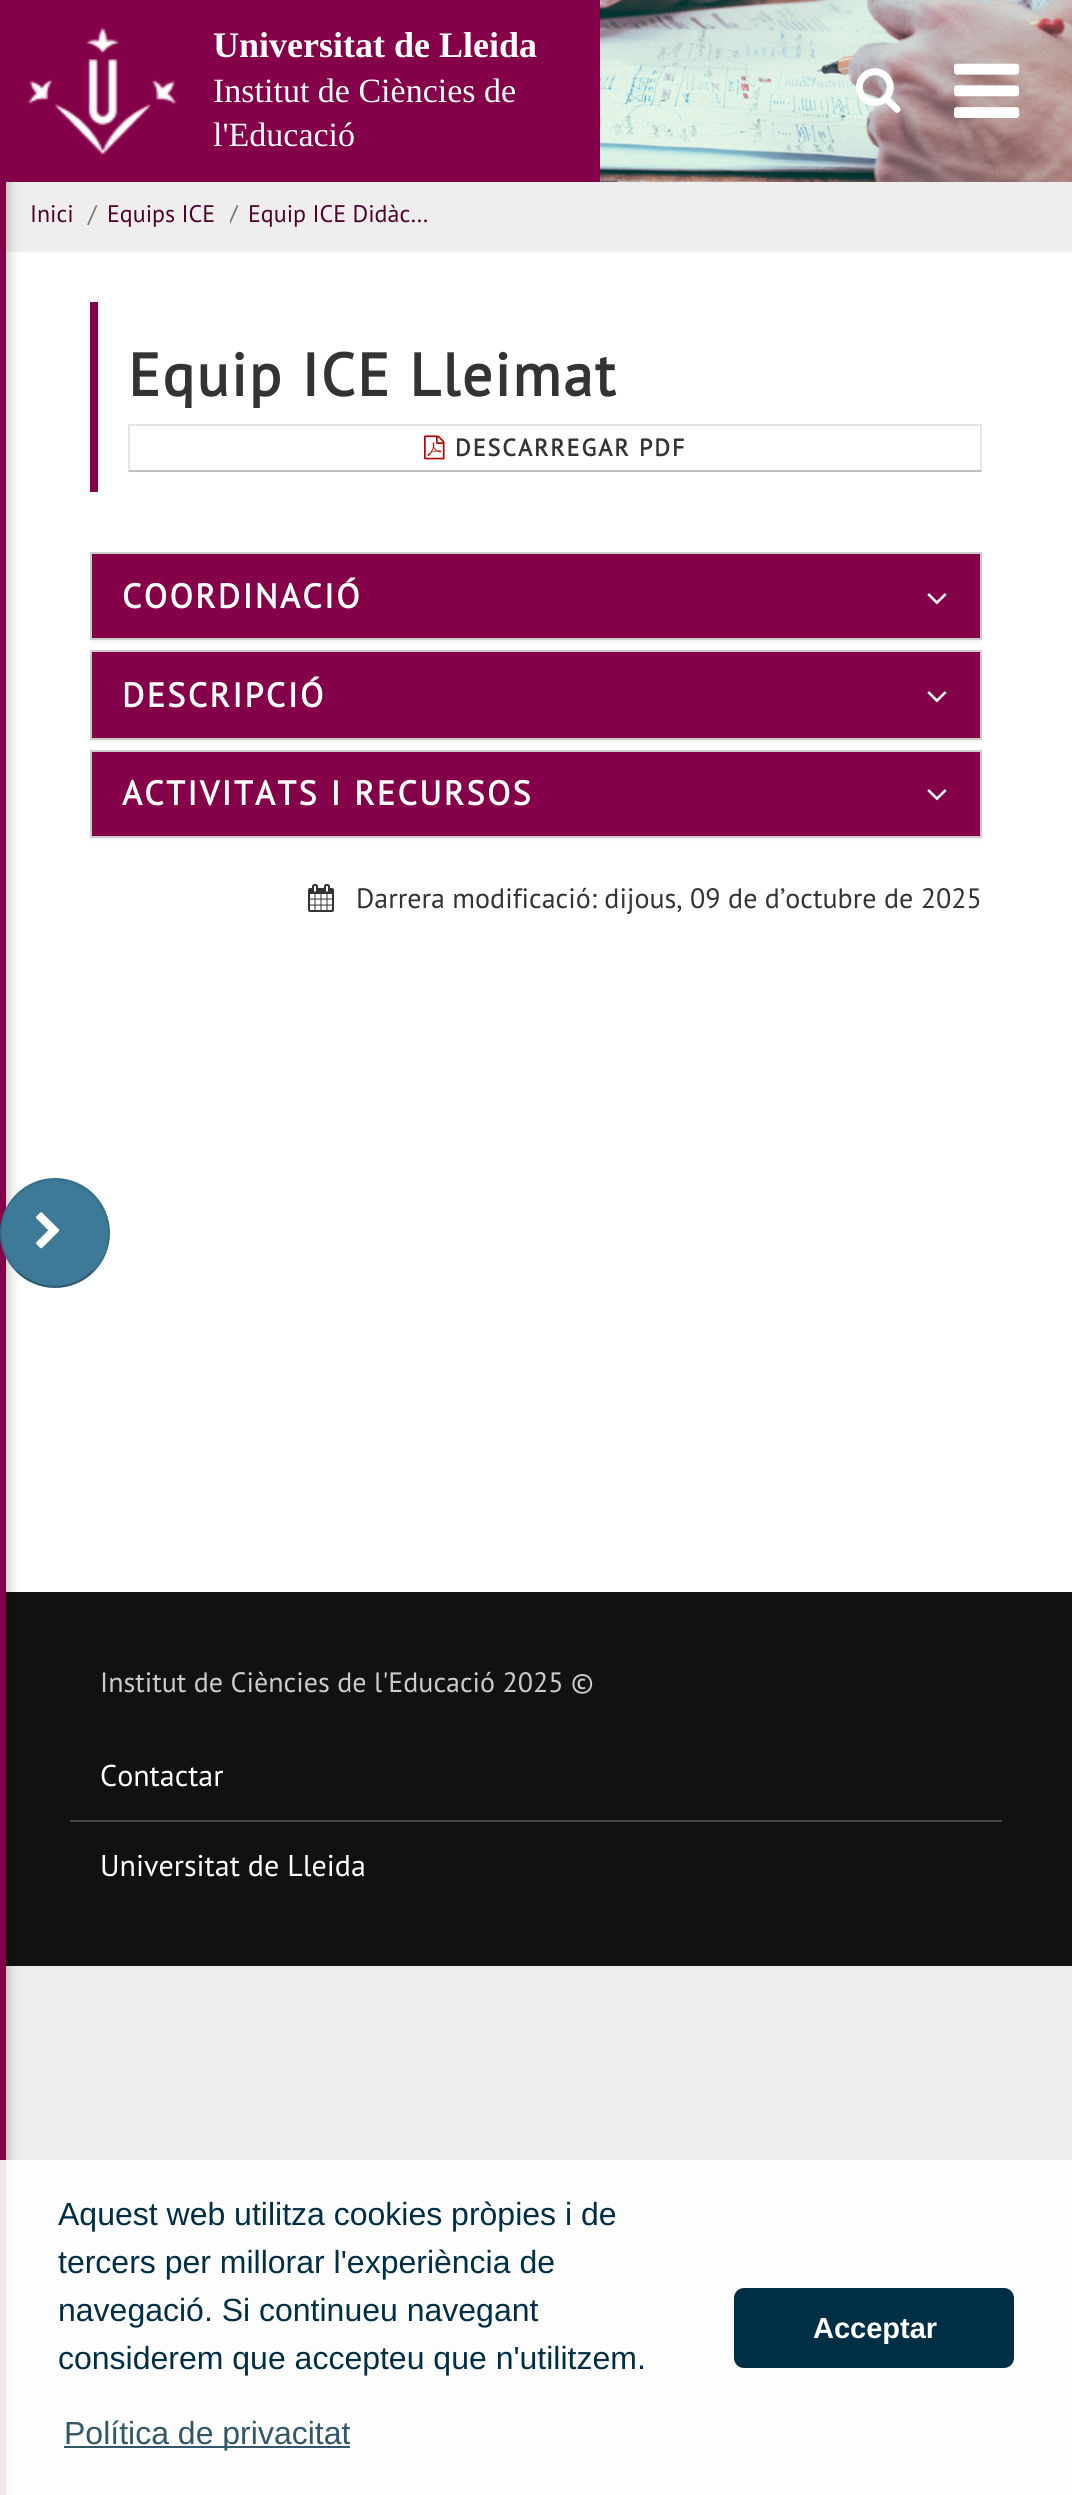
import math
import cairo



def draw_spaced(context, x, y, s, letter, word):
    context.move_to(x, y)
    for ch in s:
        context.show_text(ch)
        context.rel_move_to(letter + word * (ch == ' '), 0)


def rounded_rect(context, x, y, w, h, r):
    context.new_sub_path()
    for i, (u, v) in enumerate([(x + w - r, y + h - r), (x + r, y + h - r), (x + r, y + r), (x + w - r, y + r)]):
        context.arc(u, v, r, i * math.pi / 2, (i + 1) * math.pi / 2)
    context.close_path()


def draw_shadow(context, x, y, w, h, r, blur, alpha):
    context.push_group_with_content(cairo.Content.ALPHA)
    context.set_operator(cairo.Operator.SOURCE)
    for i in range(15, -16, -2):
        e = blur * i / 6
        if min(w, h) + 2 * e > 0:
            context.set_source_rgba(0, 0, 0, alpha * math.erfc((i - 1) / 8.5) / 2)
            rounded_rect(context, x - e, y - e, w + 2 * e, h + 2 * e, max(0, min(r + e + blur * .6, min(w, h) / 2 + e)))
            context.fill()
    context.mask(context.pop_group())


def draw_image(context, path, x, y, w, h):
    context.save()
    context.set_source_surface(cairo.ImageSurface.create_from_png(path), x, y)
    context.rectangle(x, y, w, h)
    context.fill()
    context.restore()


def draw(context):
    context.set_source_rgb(238 / 255, 238 / 255, 238 / 255)
    context.paint()
    draw_image(context, "images/1.png", 600, 0, 472, 182)
    context.set_source_rgb(1, 1, 1)
    context.rectangle(6, 252, 1066, 1340)
    context.fill()
    context.set_source_rgb(17 / 255, 17 / 255, 17 / 255)
    context.rectangle(6, 1592, 1066, 374)
    context.fill()
    context.set_source_rgb(0, 0, 0)
    draw_shadow(context, -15, -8, 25, 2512, 0, 5, 0.2)
    context.set_source_rgb(132 / 255, 0, 72 / 255)
    context.rectangle(0, 0, 600, 182)
    context.fill()
    draw_image(context, "images/2.png", 27, 27, 150, 128)
    draw_image(context, "images/3.png", 856, 68, 45, 45)
    draw_image(context, "images/4.png", 954, 63, 66, 55)
    context.rectangle(0, 182, 6, 2313)
    context.fill()
    context.rectangle(90, 302, 8, 190)
    context.fill()
    context.set_source_rgb(230 / 255, 230 / 255, 230 / 255)
    context.new_path()
    context.move_to(128, 424)
    context.line_to(982, 424)
    context.line_to(980, 426)
    context.line_to(130, 426)
    context.close_path()
    context.fill()
    context.set_source_rgba(0, 0, 0, 0.1)
    context.new_path()
    context.move_to(982, 424)
    context.line_to(982, 472)
    context.line_to(980, 470)
    context.line_to(980, 426)
    context.close_path()
    context.fill()
    context.set_source_rgba(0, 0, 0, 0.25)
    context.new_path()
    context.move_to(982, 472)
    context.line_to(128, 472)
    context.line_to(130, 470)
    context.line_to(980, 470)
    context.close_path()
    context.fill()
    context.set_source_rgba(0, 0, 0, 0.1)
    context.new_path()
    context.move_to(128, 472)
    context.line_to(128, 424)
    context.line_to(130, 426)
    context.line_to(130, 470)
    context.close_path()
    context.fill()
    draw_image(context, "images/5.png", 424, 435, 21, 25)
    context.set_source_rgb(0, 0, 0)
    draw_shadow(context, 90, 554, 892, 88, 0, 1, 0.05)
    context.rectangle(91, 553, 890, 86)
    context.set_source_rgb(204 / 255, 204 / 255, 204 / 255)
    context.stroke()
    context.set_source_rgb(132 / 255, 0, 72 / 255)
    context.rectangle(92, 554, 888, 84)
    context.fill()
    draw_image(context, "images/6.png", 927, 593, 20, 12)
    context.set_source_rgb(0, 0, 0)
    draw_shadow(context, 90, 652, 892, 90, 0, 1, 0.05)
    context.rectangle(91, 651, 890, 88)
    context.set_source_rgb(204 / 255, 204 / 255, 204 / 255)
    context.stroke()
    context.set_source_rgb(132 / 255, 0, 72 / 255)
    context.rectangle(92, 652, 888, 86)
    context.fill()
    draw_image(context, "images/6.png", 927, 691, 20, 12)
    context.set_source_rgb(0, 0, 0)
    draw_shadow(context, 90, 752, 892, 88, 0, 1, 0.05)
    context.rectangle(91, 751, 890, 86)
    context.set_source_rgb(204 / 255, 204 / 255, 204 / 255)
    context.stroke()
    context.set_source_rgb(132 / 255, 0, 72 / 255)
    context.rectangle(92, 752, 888, 84)
    context.fill()
    draw_image(context, "images/6.png", 927, 789, 20, 12)
    draw_image(context, "images/7.png", 308, 884, 26, 28)
    context.set_source_rgb(61 / 255, 122 / 255, 152 / 255)
    context.arc(55, 1233, 55, 0, 2 * math.pi)
    context.fill()
    context.new_path()
    context.move_to(93, 1271)
    context.curve_to(72.5, 1292, 37.5, 1292, 17, 1271)
    context.set_source_rgba(0, 0, 0, 0.25)
    context.stroke()
    context.new_path()
    context.move_to(17, 1271)
    context.curve_to(7, 1261, 1, 1247, 1, 1233)
    context.curve_to(1, 1185.5, 59.5, 1161, 93, 1195)
    context.curve_to(100.5, 1202.5, 106, 1212, 108, 1222.5)
    context.curve_to(111.5, 1240, 106, 1258.5, 93, 1271)
    context.set_source_rgba(0, 0, 0, 0.1)
    context.stroke()
    draw_image(context, "images/8.png", 36, 1212, 24, 37)
    context.set_source_rgb(68 / 255, 68 / 255, 68 / 255)
    context.rectangle(70, 1820, 932, 2)
    context.fill()
    context.set_source_rgba(1, 1, 1, 0.9)
    context.rectangle(0, 2160, 1072, 335)
    context.fill()
    context.set_source_rgb(51 / 255, 87 / 255, 106 / 255)
    context.rectangle(64, 2446, 286, 2)
    context.fill()
    context.set_source_rgb(0, 46 / 255, 69 / 255)
    rounded_rect(context, 734, 2288, 280, 80, 10)
    context.fill()
    context.select_font_face("Liberation Serif", cairo.FontSlant.NORMAL, cairo.FontWeight.BOLD)
    context.set_font_size(36)
    context.set_source_rgb(1, 1, 1)
    context.move_to(213, 57)
    context.show_text("Universitat de Lleida")
    context.select_font_face("Liberation Serif")
    context.set_font_size(34)
    context.move_to(213, 102)
    context.show_text("Institut de Ciències de")
    context.move_to(213, 146)
    context.show_text("l'Educació")
    context.select_font_face("PT Sans")
    context.set_font_size(24)
    context.set_source_rgb(81 / 255, 0, 44 / 255)
    context.move_to(30, 222)
    context.show_text("Inici")
    context.set_source_rgb(115 / 255, 115 / 255, 115 / 255)
    context.move_to(88, 222)
    context.show_text("/")
    context.set_source_rgb(81 / 255, 0, 44 / 255)
    context.move_to(107, 222)
    context.show_text("Equips ICE")
    context.save()
    context.rectangle(230, 196, 200, 34)
    context.clip()
    context.set_source_rgb(115 / 255, 115 / 255, 115 / 255)
    context.move_to(229, 222)
    context.show_text("/")
    context.restore()
    context.move_to(248, 222)
    context.show_text("Equip ICE Didàc…")
    context.select_font_face("PT Sans", cairo.FontSlant.NORMAL, cairo.FontWeight.BOLD)
    context.set_font_size(60)
    context.set_source_rgb(51 / 255, 51 / 255, 51 / 255)
    draw_spaced(context, 128, 396, "Equip ICE Lleimat", 2, 0)
    context.set_font_size(24)
    draw_spaced(context, 455, 456, "DESCARREGAR PDF", 2, 0)
    context.set_font_size(34)
    context.set_source_rgb(1, 1, 1)
    draw_spaced(context, 122, 608, "COORDINACIÓ", 2.4, 0)
    draw_spaced(context, 122, 707, "DESCRIPCIÓ", 2.4, 0)
    draw_spaced(context, 122, 805, "ACTIVITATS I RECURSOS", 2.4, 0)
    context.select_font_face("PT Sans")
    context.set_font_size(28)
    context.set_source_rgb(51 / 255, 51 / 255, 51 / 255)
    context.move_to(356, 908)
    context.show_text("Darrera modificació: dijous, 09 de d’octubre de 2025")
    context.set_source_rgb(204 / 255, 204 / 255, 204 / 255)
    context.move_to(100, 1692)
    context.show_text("Institut de Ciències de l'Educació 2025 ©")
    context.set_font_size(30)
    context.set_source_rgb(1, 1, 1)
    context.move_to(100, 1786)
    context.show_text("Contactar")
    context.move_to(100, 1876)
    context.show_text("Universitat de Lleida")
    context.select_font_face("Liberation Sans")
    context.set_font_size(32)
    context.set_source_rgb(0, 46 / 255, 69 / 255)
    context.move_to(58, 2225)
    context.show_text("Aquest web utilitza cookies pròpies i de")
    context.move_to(58, 2273)
    context.show_text("tercers per millorar l'experiència de")
    context.move_to(58, 2321)
    context.show_text("navegació. Si continueu navegant")
    context.move_to(58, 2369)
    context.show_text("considerem que accepteu que n'utilitzem.")
    context.set_source_rgb(51 / 255, 87 / 255, 106 / 255)
    context.move_to(64, 2444)
    context.show_text("Política de privacitat")
    context.select_font_face("Liberation Sans", cairo.FontSlant.NORMAL, cairo.FontWeight.BOLD)
    context.set_font_size(29)
    context.set_source_rgb(1, 1, 1)
    context.move_to(813, 2338)
    context.show_text("Acceptar")


surface = cairo.ImageSurface(cairo.Format.RGB24, 1072, 2495)
context = cairo.Context(surface)
options = cairo.FontOptions()
options.set_hint_metrics(cairo.HintMetrics.OFF)
options.set_hint_style(cairo.HintStyle.NONE)
context.set_font_options(options)
context.set_miter_limit(4)
draw(context)
surface.write_to_png("out.png")
